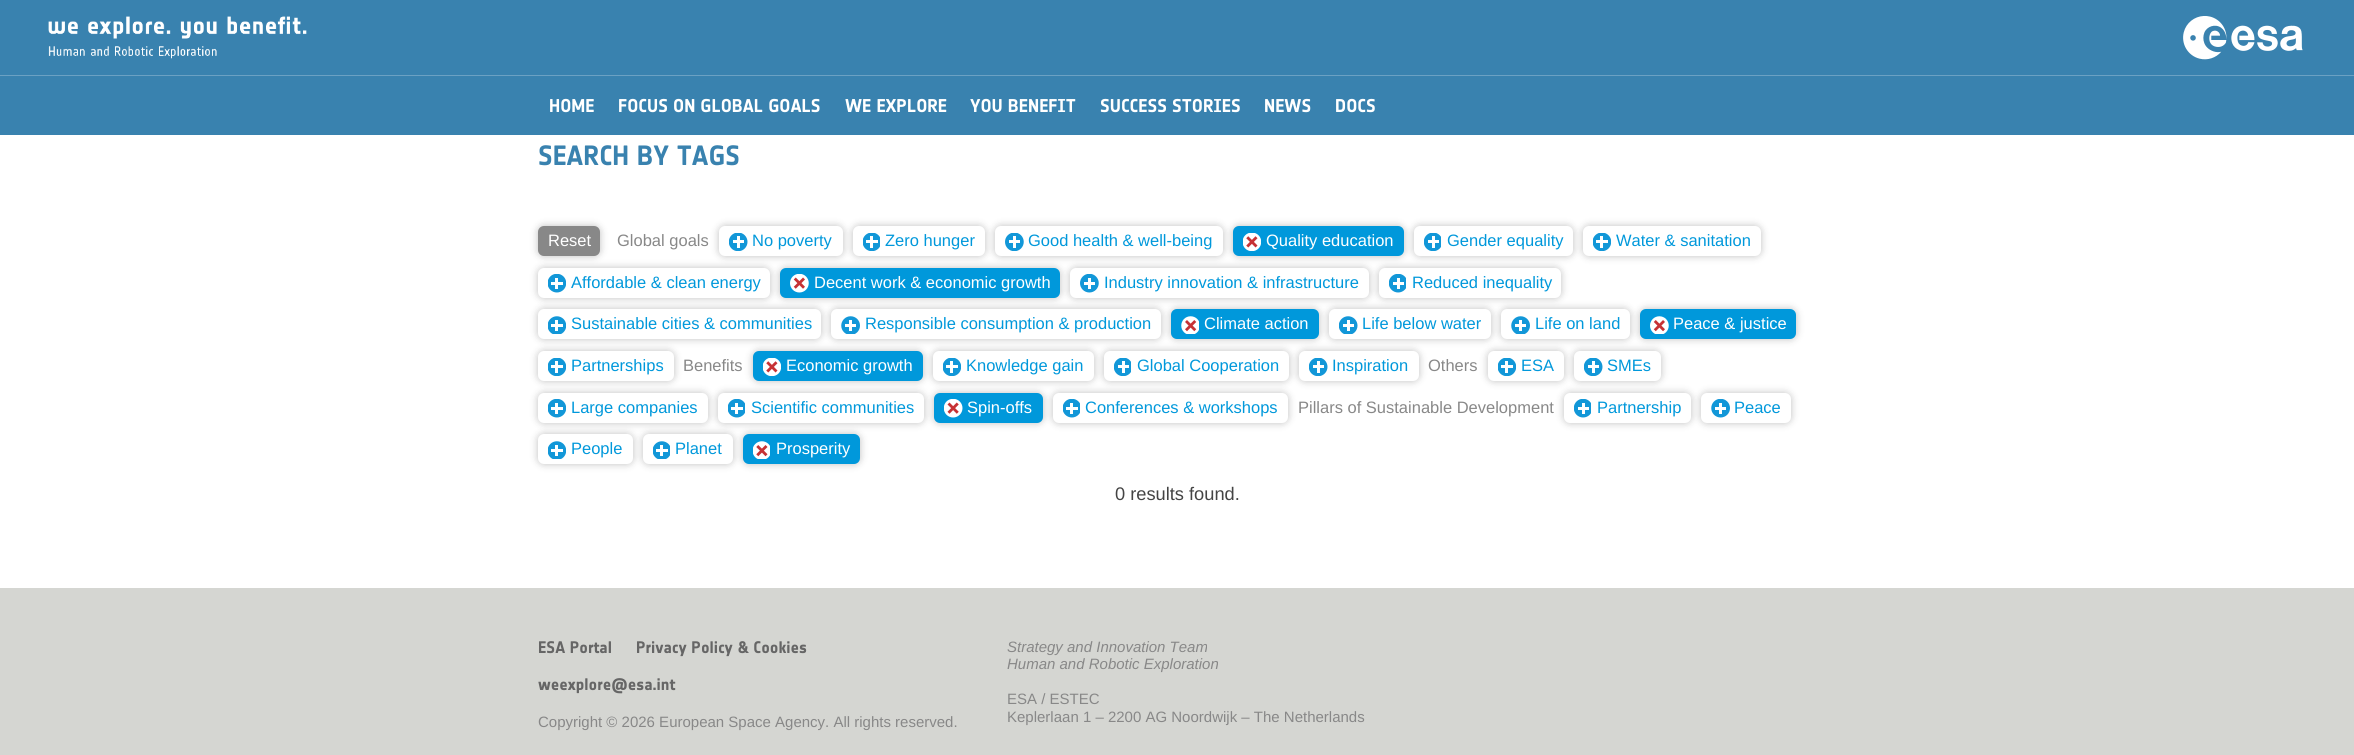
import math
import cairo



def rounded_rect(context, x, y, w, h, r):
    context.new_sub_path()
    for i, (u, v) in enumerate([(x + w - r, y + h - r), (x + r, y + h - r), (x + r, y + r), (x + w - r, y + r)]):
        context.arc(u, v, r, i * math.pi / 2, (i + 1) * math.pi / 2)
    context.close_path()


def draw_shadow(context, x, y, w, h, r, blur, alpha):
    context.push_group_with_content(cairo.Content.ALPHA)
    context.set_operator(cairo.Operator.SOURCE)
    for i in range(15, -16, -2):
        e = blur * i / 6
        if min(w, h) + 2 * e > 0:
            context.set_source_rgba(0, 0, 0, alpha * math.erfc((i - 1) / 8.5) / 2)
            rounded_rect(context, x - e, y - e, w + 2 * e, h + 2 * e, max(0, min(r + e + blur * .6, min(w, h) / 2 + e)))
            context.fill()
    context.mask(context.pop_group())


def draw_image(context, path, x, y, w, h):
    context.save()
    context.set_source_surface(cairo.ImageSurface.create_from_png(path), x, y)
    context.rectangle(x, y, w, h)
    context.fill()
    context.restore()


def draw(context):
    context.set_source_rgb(1, 1, 1)
    context.paint()
    context.set_source_rgb(57 / 255, 130 / 255, 175 / 255)
    context.rectangle(0, 0, 2354, 75)
    context.fill()
    draw_image(context, "images/1.png", 48, 16, 259, 43)
    draw_image(context, "images/2.png", 2183, 16, 120, 44)
    context.rectangle(0, 76, 2354, 59)
    context.fill()
    context.set_source_rgb(107 / 255, 161 / 255, 195 / 255)
    context.rectangle(0, 75, 2354, 1)
    context.fill()
    context.set_source_rgb(0, 0, 0)
    draw_shadow(context, 538, 226, 62, 30, 6, 4, 0.25)
    context.set_source_rgb(136 / 255, 136 / 255, 136 / 255)
    rounded_rect(context, 538, 226, 62, 30, 6)
    context.fill()
    context.set_source_rgb(0, 0, 0)
    draw_shadow(context, 719, 226, 124, 30, 6, 4, 0.25)
    context.set_source_rgb(1, 1, 1)
    rounded_rect(context, 719, 226, 124, 30, 6)
    context.fill()
    draw_image(context, "images/3.png", 729, 233, 19, 18)
    context.set_source_rgb(0, 0, 0)
    draw_shadow(context, 853, 226, 132, 30, 6, 4, 0.25)
    context.set_source_rgb(1, 1, 1)
    rounded_rect(context, 853, 226, 132, 30, 6)
    context.fill()
    draw_image(context, "images/4.png", 863, 233, 17, 18)
    context.set_source_rgb(0, 0, 0)
    draw_shadow(context, 995, 226, 228, 30, 6, 4, 0.25)
    context.set_source_rgb(1, 1, 1)
    rounded_rect(context, 995, 226, 228, 30, 6)
    context.fill()
    draw_image(context, "images/5.png", 1005, 233, 19, 18)
    context.set_source_rgb(0, 0, 0)
    draw_shadow(context, 1233, 226, 171, 30, 6, 4, 0.25)
    context.set_source_rgb(0, 152 / 255, 219 / 255)
    rounded_rect(context, 1233, 226, 171, 30, 6)
    context.fill()
    draw_image(context, "images/6.png", 1243, 233, 18, 18)
    context.set_source_rgb(0, 0, 0)
    draw_shadow(context, 1414, 226, 159, 30, 6, 4, 0.25)
    context.set_source_rgb(1, 1, 1)
    rounded_rect(context, 1414, 226, 159, 30, 6)
    context.fill()
    draw_image(context, "images/7.png", 1424, 233, 17, 18)
    context.set_source_rgb(0, 0, 0)
    draw_shadow(context, 1583, 226, 178, 30, 6, 4, 0.25)
    context.set_source_rgb(1, 1, 1)
    rounded_rect(context, 1583, 226, 178, 30, 6)
    context.fill()
    draw_image(context, "images/8.png", 1593, 233, 18, 18)
    context.set_source_rgb(0, 0, 0)
    draw_shadow(context, 538, 268, 232, 30, 6, 4, 0.25)
    context.set_source_rgb(1, 1, 1)
    rounded_rect(context, 538, 268, 232, 30, 6)
    context.fill()
    draw_image(context, "images/9.png", 548, 274, 18, 19)
    context.set_source_rgb(0, 0, 0)
    draw_shadow(context, 780, 268, 280, 30, 6, 4, 0.25)
    context.set_source_rgb(0, 152 / 255, 219 / 255)
    rounded_rect(context, 780, 268, 280, 30, 6)
    context.fill()
    draw_image(context, "images/10.png", 790, 274, 19, 19)
    context.set_source_rgb(0, 0, 0)
    draw_shadow(context, 1070, 268, 299, 30, 6, 4, 0.25)
    context.set_source_rgb(1, 1, 1)
    rounded_rect(context, 1070, 268, 299, 30, 6)
    context.fill()
    draw_image(context, "images/11.png", 1080, 274, 19, 19)
    context.set_source_rgb(0, 0, 0)
    draw_shadow(context, 1379, 268, 182, 30, 6, 4, 0.25)
    context.set_source_rgb(1, 1, 1)
    rounded_rect(context, 1379, 268, 182, 30, 6)
    context.fill()
    draw_image(context, "images/12.png", 1389, 274, 17, 19)
    context.set_source_rgb(0, 0, 0)
    draw_shadow(context, 538, 309, 283, 30, 6, 4, 0.25)
    context.set_source_rgb(1, 1, 1)
    rounded_rect(context, 538, 309, 283, 30, 6)
    context.fill()
    draw_image(context, "images/13.png", 548, 316, 18, 18)
    context.set_source_rgb(0, 0, 0)
    draw_shadow(context, 831, 309, 330, 30, 6, 4, 0.25)
    context.set_source_rgb(1, 1, 1)
    rounded_rect(context, 831, 309, 330, 30, 6)
    context.fill()
    draw_image(context, "images/14.png", 841, 316, 19, 18)
    context.set_source_rgb(0, 0, 0)
    draw_shadow(context, 1171, 309, 148, 30, 6, 4, 0.25)
    context.set_source_rgb(0, 152 / 255, 219 / 255)
    rounded_rect(context, 1171, 309, 148, 30, 6)
    context.fill()
    draw_image(context, "images/15.png", 1181, 316, 18, 18)
    context.set_source_rgb(0, 0, 0)
    draw_shadow(context, 1329, 309, 162, 30, 6, 4, 0.25)
    context.set_source_rgb(1, 1, 1)
    rounded_rect(context, 1329, 309, 162, 30, 6)
    context.fill()
    draw_image(context, "images/16.png", 1339, 316, 19, 18)
    context.set_source_rgb(0, 0, 0)
    draw_shadow(context, 1501, 309, 129, 30, 6, 4, 0.25)
    context.set_source_rgb(1, 1, 1)
    rounded_rect(context, 1501, 309, 129, 30, 6)
    context.fill()
    draw_image(context, "images/14.png", 1511, 316, 19, 18)
    context.set_source_rgb(0, 0, 0)
    draw_shadow(context, 1640, 309, 156, 30, 6, 4, 0.25)
    context.set_source_rgb(0, 152 / 255, 219 / 255)
    rounded_rect(context, 1640, 309, 156, 30, 6)
    context.fill()
    draw_image(context, "images/17.png", 1650, 316, 19, 18)
    context.set_source_rgb(0, 0, 0)
    draw_shadow(context, 538, 351, 136, 30, 6, 4, 0.25)
    context.set_source_rgb(1, 1, 1)
    rounded_rect(context, 538, 351, 136, 30, 6)
    context.fill()
    draw_image(context, "images/8.png", 548, 358, 18, 18)
    context.set_source_rgb(0, 0, 0)
    draw_shadow(context, 753, 351, 170, 30, 6, 4, 0.25)
    context.set_source_rgb(0, 152 / 255, 219 / 255)
    rounded_rect(context, 753, 351, 170, 30, 6)
    context.fill()
    draw_image(context, "images/6.png", 763, 358, 18, 18)
    context.set_source_rgb(0, 0, 0)
    draw_shadow(context, 933, 351, 161, 30, 6, 4, 0.25)
    context.set_source_rgb(1, 1, 1)
    rounded_rect(context, 933, 351, 161, 30, 6)
    context.fill()
    draw_image(context, "images/8.png", 943, 358, 18, 18)
    context.set_source_rgb(0, 0, 0)
    draw_shadow(context, 1104, 351, 185, 30, 6, 4, 0.25)
    context.set_source_rgb(1, 1, 1)
    rounded_rect(context, 1104, 351, 185, 30, 6)
    context.fill()
    draw_image(context, "images/7.png", 1114, 358, 17, 18)
    context.set_source_rgb(0, 0, 0)
    draw_shadow(context, 1299, 351, 120, 30, 6, 4, 0.25)
    context.set_source_rgb(1, 1, 1)
    rounded_rect(context, 1299, 351, 120, 30, 6)
    context.fill()
    draw_image(context, "images/3.png", 1309, 358, 19, 18)
    context.set_source_rgb(0, 0, 0)
    draw_shadow(context, 1488, 351, 76, 30, 6, 4, 0.25)
    context.set_source_rgb(1, 1, 1)
    rounded_rect(context, 1488, 351, 76, 30, 6)
    context.fill()
    draw_image(context, "images/8.png", 1498, 358, 18, 18)
    context.set_source_rgb(0, 0, 0)
    draw_shadow(context, 1574, 351, 87, 30, 6, 4, 0.25)
    context.set_source_rgb(1, 1, 1)
    rounded_rect(context, 1574, 351, 87, 30, 6)
    context.fill()
    draw_image(context, "images/3.png", 1584, 358, 19, 18)
    context.set_source_rgb(0, 0, 0)
    draw_shadow(context, 538, 393, 170, 30, 6, 4, 0.25)
    context.set_source_rgb(1, 1, 1)
    rounded_rect(context, 538, 393, 170, 30, 6)
    context.fill()
    draw_image(context, "images/9.png", 548, 399, 18, 19)
    context.set_source_rgb(0, 0, 0)
    draw_shadow(context, 718, 393, 206, 30, 6, 4, 0.25)
    context.set_source_rgb(1, 1, 1)
    rounded_rect(context, 718, 393, 206, 30, 6)
    context.fill()
    draw_image(context, "images/18.png", 728, 399, 17, 19)
    context.set_source_rgb(0, 0, 0)
    draw_shadow(context, 934, 393, 109, 30, 6, 4, 0.25)
    context.set_source_rgb(0, 152 / 255, 219 / 255)
    rounded_rect(context, 934, 393, 109, 30, 6)
    context.fill()
    draw_image(context, "images/19.png", 944, 399, 19, 19)
    context.set_source_rgb(0, 0, 0)
    draw_shadow(context, 1053, 393, 235, 30, 6, 4, 0.25)
    context.set_source_rgb(1, 1, 1)
    rounded_rect(context, 1053, 393, 235, 30, 6)
    context.fill()
    draw_image(context, "images/18.png", 1063, 399, 17, 19)
    context.set_source_rgb(0, 0, 0)
    draw_shadow(context, 1564, 393, 127, 30, 6, 4, 0.25)
    context.set_source_rgb(1, 1, 1)
    rounded_rect(context, 1564, 393, 127, 30, 6)
    context.fill()
    draw_image(context, "images/12.png", 1574, 399, 17, 19)
    context.set_source_rgb(0, 0, 0)
    draw_shadow(context, 1701, 393, 90, 30, 6, 4, 0.25)
    context.set_source_rgb(1, 1, 1)
    rounded_rect(context, 1701, 393, 90, 30, 6)
    context.fill()
    draw_image(context, "images/20.png", 1711, 399, 19, 19)
    context.set_source_rgb(0, 0, 0)
    draw_shadow(context, 538, 434, 95, 30, 6, 4, 0.25)
    context.set_source_rgb(1, 1, 1)
    rounded_rect(context, 538, 434, 95, 30, 6)
    context.fill()
    draw_image(context, "images/13.png", 548, 441, 18, 18)
    context.set_source_rgb(0, 0, 0)
    draw_shadow(context, 643, 434, 90, 30, 6, 4, 0.25)
    context.set_source_rgb(1, 1, 1)
    rounded_rect(context, 643, 434, 90, 30, 6)
    context.fill()
    draw_image(context, "images/21.png", 653, 441, 17, 18)
    context.set_source_rgb(0, 0, 0)
    draw_shadow(context, 743, 434, 117, 30, 6, 4, 0.25)
    context.set_source_rgb(0, 152 / 255, 219 / 255)
    rounded_rect(context, 743, 434, 117, 30, 6)
    context.fill()
    draw_image(context, "images/22.png", 753, 441, 17, 18)
    context.set_source_rgb(213 / 255, 214 / 255, 210 / 255)
    context.rectangle(0, 588, 2354, 167)
    context.fill()
    context.select_font_face("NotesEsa", cairo.FontSlant.NORMAL, cairo.FontWeight.BOLD)
    context.set_font_size(18.25)
    context.set_source_rgb(1, 1, 1)
    context.move_to(549, 112)
    context.show_text("HOME")
    context.move_to(618, 112)
    context.show_text("FOCUS ON GLOBAL GOALS")
    context.move_to(845, 112)
    context.show_text("WE EXPLORE")
    context.move_to(970, 112)
    context.show_text("YOU BENEFIT")
    context.move_to(1100, 112)
    context.show_text("SUCCESS STORIES")
    context.move_to(1264, 112)
    context.show_text("NEWS")
    context.move_to(1335, 112)
    context.show_text("DOCS")
    context.set_font_size(27.5)
    context.set_source_rgb(57 / 255, 130 / 255, 175 / 255)
    context.move_to(538, 165)
    context.show_text("SEARCH BY TAGS")
    context.select_font_face("Liberation Sans")
    context.set_font_size(16.5)
    context.set_source_rgb(1, 1, 1)
    context.move_to(548, 246)
    context.show_text("Reset")
    context.set_source_rgb(136 / 255, 136 / 255, 136 / 255)
    context.move_to(617, 246)
    context.show_text("Global goals")
    context.set_source_rgb(0, 152 / 255, 219 / 255)
    context.move_to(752, 246)
    context.show_text("No poverty")
    context.move_to(885, 246)
    context.show_text("Zero hunger")
    context.move_to(1028, 246)
    context.show_text("Good health & well-being")
    context.set_source_rgb(1, 1, 1)
    context.move_to(1266, 246)
    context.show_text("Quality education")
    context.set_source_rgb(0, 152 / 255, 219 / 255)
    context.move_to(1447, 246)
    context.show_text("Gender equality")
    context.move_to(1616, 246)
    context.show_text("Water & sanitation")
    context.move_to(571, 288)
    context.show_text("Affordable & clean energy")
    context.set_source_rgb(1, 1, 1)
    context.move_to(814, 288)
    context.show_text("Decent work & economic growth")
    context.set_source_rgb(0, 152 / 255, 219 / 255)
    context.move_to(1104, 288)
    context.show_text("Industry innovation & infrastructure")
    context.move_to(1412, 288)
    context.show_text("Reduced inequality")
    context.move_to(571, 329)
    context.show_text("Sustainable cities & communities")
    context.move_to(865, 329)
    context.show_text("Responsible consumption & production")
    context.set_source_rgb(1, 1, 1)
    context.move_to(1204, 329)
    context.show_text("Climate action")
    context.set_source_rgb(0, 152 / 255, 219 / 255)
    context.move_to(1362, 329)
    context.show_text("Life below water")
    context.move_to(1535, 329)
    context.show_text("Life on land")
    context.set_source_rgb(1, 1, 1)
    context.move_to(1673, 329)
    context.show_text("Peace & justice")
    context.set_source_rgb(0, 152 / 255, 219 / 255)
    context.move_to(571, 371)
    context.show_text("Partnerships")
    context.set_source_rgb(136 / 255, 136 / 255, 136 / 255)
    context.move_to(683, 371)
    context.show_text("Benefits")
    context.set_source_rgb(1, 1, 1)
    context.move_to(786, 371)
    context.show_text("Economic growth")
    context.set_source_rgb(0, 152 / 255, 219 / 255)
    context.move_to(966, 371)
    context.show_text("Knowledge gain")
    context.move_to(1137, 371)
    context.show_text("Global Cooperation")
    context.move_to(1332, 371)
    context.show_text("Inspiration")
    context.set_source_rgb(136 / 255, 136 / 255, 136 / 255)
    context.move_to(1428, 371)
    context.show_text("Others")
    context.set_source_rgb(0, 152 / 255, 219 / 255)
    context.move_to(1521, 371)
    context.show_text("ESA")
    context.move_to(1607, 371)
    context.show_text("SMEs")
    context.move_to(571, 413)
    context.show_text("Large companies")
    context.move_to(751, 413)
    context.show_text("Scientific communities")
    context.set_source_rgb(1, 1, 1)
    context.move_to(967, 413)
    context.show_text("Spin-offs")
    context.set_source_rgb(0, 152 / 255, 219 / 255)
    context.move_to(1085, 413)
    context.show_text("Conferences & workshops")
    context.set_source_rgb(136 / 255, 136 / 255, 136 / 255)
    context.move_to(1298, 413)
    context.show_text("Pillars of Sustainable Development")
    context.set_source_rgb(0, 152 / 255, 219 / 255)
    context.move_to(1597, 413)
    context.show_text("Partnership")
    context.move_to(1734, 413)
    context.show_text("Peace")
    context.move_to(571, 454)
    context.show_text("People")
    context.move_to(675, 454)
    context.show_text("Planet")
    context.set_source_rgb(1, 1, 1)
    context.move_to(776, 454)
    context.show_text("Prosperity")
    context.set_font_size(18.25)
    context.set_source_rgb(68 / 255, 68 / 255, 68 / 255)
    context.move_to(1115, 500)
    context.show_text("0 results found.")
    context.select_font_face("NotesEsa", cairo.FontSlant.NORMAL, cairo.FontWeight.BOLD)
    context.set_font_size(16.5)
    context.set_source_rgb(102 / 255, 102 / 255, 102 / 255)
    context.move_to(538, 653)
    context.show_text("ESA Portal")
    context.move_to(636, 653)
    context.show_text("Privacy Policy & Cookies")
    context.move_to(538, 690)
    context.show_text("weexplore@esa.int")
    context.select_font_face("Liberation Sans")
    context.set_font_size(15)
    context.set_source_rgb(136 / 255, 136 / 255, 136 / 255)
    context.move_to(538, 727)
    context.show_text("Copyright © 2026 European Space Agency. All rights reserved.")
    context.select_font_face("Liberation Sans", cairo.FontSlant.ITALIC)
    context.move_to(1007, 652)
    context.show_text("Strategy and Innovation Team")
    context.move_to(1007, 669)
    context.show_text("Human and Robotic Exploration")
    context.select_font_face("Liberation Sans")
    context.move_to(1007, 704)
    context.show_text("ESA / ESTEC")
    context.move_to(1007, 722)
    context.show_text("Keplerlaan 1 – 2200 AG Noordwijk – The Netherlands")


surface = cairo.ImageSurface(cairo.Format.RGB24, 2354, 755)
context = cairo.Context(surface)
options = cairo.FontOptions()
options.set_hint_metrics(cairo.HintMetrics.OFF)
options.set_hint_style(cairo.HintStyle.NONE)
context.set_font_options(options)
context.set_miter_limit(4)
draw(context)
surface.write_to_png("out.png")
